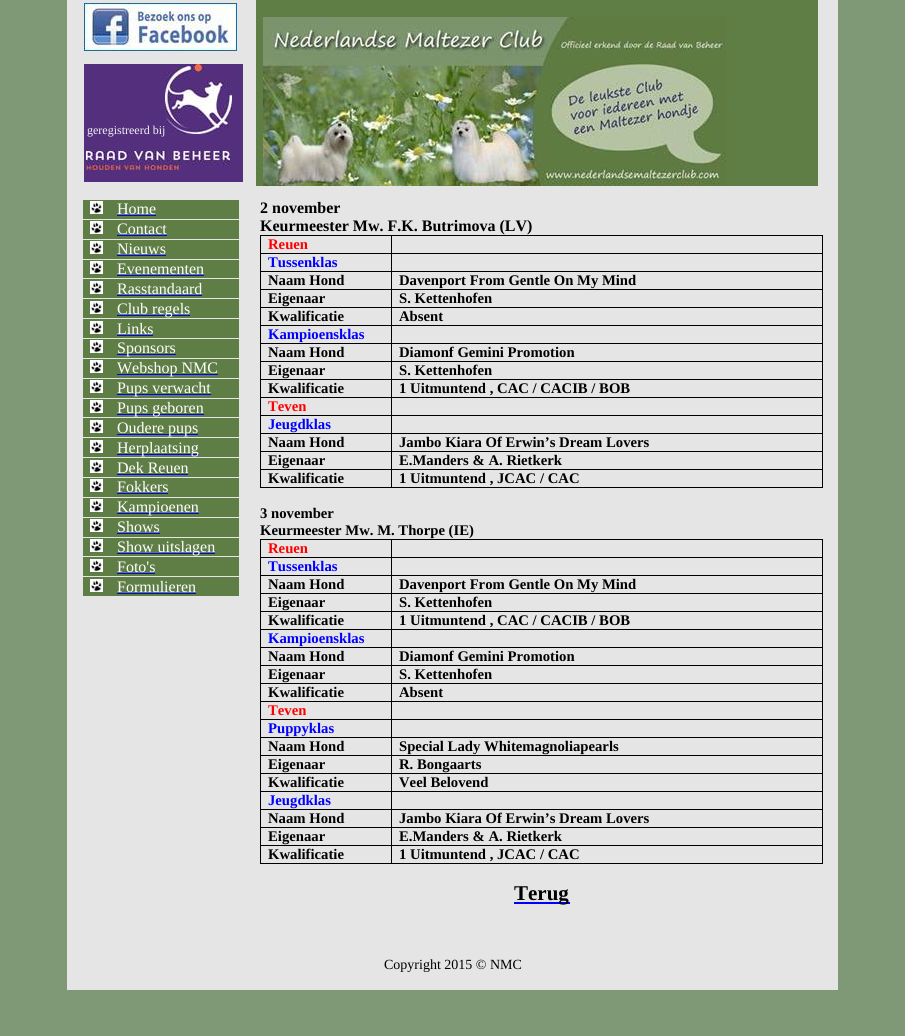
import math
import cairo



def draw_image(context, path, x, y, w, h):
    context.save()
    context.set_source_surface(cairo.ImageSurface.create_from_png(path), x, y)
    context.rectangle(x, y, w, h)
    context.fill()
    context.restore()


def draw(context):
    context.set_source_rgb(127 / 255, 153 / 255, 118 / 255)
    context.paint()
    context.set_source_rgb(229 / 255, 229 / 255, 229 / 255)
    context.rectangle(67, 0, 771, 990)
    context.fill()
    draw_image(context, "images/1.png", 84, 3, 153, 48)
    context.set_source_rgb(84 / 255, 47 / 255, 125 / 255)
    context.rectangle(84, 64, 159, 118)
    context.fill()
    draw_image(context, "images/2.png", 165, 64, 67, 70)
    draw_image(context, "images/3.png", 86, 151, 144, 19)
    context.set_source_rgb(94 / 255, 126 / 255, 70 / 255)
    context.rectangle(256, 0, 562, 186)
    context.fill()
    draw_image(context, "images/4.png", 263, 17, 463, 169)
    context.rectangle(83, 200, 156, 19)
    context.fill()
    draw_image(context, "images/5.png", 90, 201, 13, 13)
    context.set_source_rgb(0, 0, 1)
    context.rectangle(117, 215, 39, 1)
    context.fill()
    context.set_source_rgb(94 / 255, 126 / 255, 70 / 255)
    context.rectangle(83, 220, 156, 19)
    context.fill()
    draw_image(context, "images/5.png", 90, 221, 13, 13)
    context.set_source_rgb(0, 0, 1)
    context.rectangle(117, 235, 50, 1)
    context.fill()
    context.set_source_rgb(94 / 255, 126 / 255, 70 / 255)
    context.rectangle(83, 240, 156, 19)
    context.fill()
    draw_image(context, "images/5.png", 90, 241, 13, 13)
    context.set_source_rgb(0, 0, 1)
    context.rectangle(117, 255, 49, 1)
    context.fill()
    context.set_source_rgb(94 / 255, 126 / 255, 70 / 255)
    context.rectangle(83, 260, 156, 18)
    context.fill()
    draw_image(context, "images/5.png", 90, 261, 13, 13)
    context.set_source_rgb(0, 0, 1)
    context.rectangle(117, 275, 87, 1)
    context.fill()
    context.set_source_rgb(94 / 255, 126 / 255, 70 / 255)
    context.rectangle(83, 279, 156, 19)
    context.fill()
    draw_image(context, "images/5.png", 90, 281, 13, 13)
    context.set_source_rgb(0, 0, 1)
    context.rectangle(117, 295, 85, 1)
    context.fill()
    context.set_source_rgb(94 / 255, 126 / 255, 70 / 255)
    context.rectangle(83, 299, 156, 19)
    context.fill()
    draw_image(context, "images/5.png", 90, 301, 13, 13)
    context.set_source_rgb(0, 0, 1)
    context.rectangle(117, 315, 73, 1)
    context.fill()
    context.set_source_rgb(94 / 255, 126 / 255, 70 / 255)
    context.rectangle(83, 319, 156, 19)
    context.fill()
    draw_image(context, "images/5.png", 90, 321, 13, 13)
    context.set_source_rgb(0, 0, 1)
    context.rectangle(117, 335, 36, 1)
    context.fill()
    context.set_source_rgb(94 / 255, 126 / 255, 70 / 255)
    context.rectangle(83, 339, 156, 19)
    context.fill()
    draw_image(context, "images/5.png", 90, 340, 13, 13)
    context.set_source_rgb(0, 0, 1)
    context.rectangle(117, 354, 59, 1)
    context.fill()
    context.set_source_rgb(94 / 255, 126 / 255, 70 / 255)
    context.rectangle(83, 359, 156, 19)
    context.fill()
    draw_image(context, "images/5.png", 90, 360, 13, 13)
    context.set_source_rgb(0, 0, 1)
    context.rectangle(117, 374, 101, 1)
    context.fill()
    context.set_source_rgb(94 / 255, 126 / 255, 70 / 255)
    context.rectangle(83, 379, 156, 19)
    context.fill()
    draw_image(context, "images/5.png", 90, 380, 13, 13)
    context.set_source_rgb(0, 0, 1)
    context.rectangle(117, 394, 94, 1)
    context.fill()
    context.set_source_rgb(94 / 255, 126 / 255, 70 / 255)
    context.rectangle(83, 399, 156, 18)
    context.fill()
    draw_image(context, "images/5.png", 90, 400, 13, 13)
    context.set_source_rgb(0, 0, 1)
    context.rectangle(117, 414, 87, 1)
    context.fill()
    context.set_source_rgb(94 / 255, 126 / 255, 70 / 255)
    context.rectangle(83, 418, 156, 19)
    context.fill()
    draw_image(context, "images/5.png", 90, 420, 13, 13)
    context.set_source_rgb(0, 0, 1)
    context.rectangle(117, 434, 81, 1)
    context.fill()
    context.set_source_rgb(94 / 255, 126 / 255, 70 / 255)
    context.rectangle(83, 438, 156, 19)
    context.fill()
    draw_image(context, "images/5.png", 90, 440, 13, 13)
    context.set_source_rgb(0, 0, 1)
    context.rectangle(117, 454, 82, 1)
    context.fill()
    context.set_source_rgb(94 / 255, 126 / 255, 70 / 255)
    context.rectangle(83, 458, 156, 19)
    context.fill()
    draw_image(context, "images/5.png", 90, 460, 13, 13)
    context.set_source_rgb(0, 0, 1)
    context.rectangle(117, 474, 71, 1)
    context.fill()
    context.set_source_rgb(94 / 255, 126 / 255, 70 / 255)
    context.rectangle(83, 478, 156, 19)
    context.fill()
    draw_image(context, "images/5.png", 90, 479, 13, 13)
    context.set_source_rgb(0, 0, 1)
    context.rectangle(117, 493, 51, 1)
    context.fill()
    context.set_source_rgb(94 / 255, 126 / 255, 70 / 255)
    context.rectangle(83, 498, 156, 19)
    context.fill()
    draw_image(context, "images/5.png", 90, 499, 13, 13)
    context.set_source_rgb(0, 0, 1)
    context.rectangle(117, 513, 82, 1)
    context.fill()
    context.set_source_rgb(94 / 255, 126 / 255, 70 / 255)
    context.rectangle(83, 518, 156, 19)
    context.fill()
    draw_image(context, "images/5.png", 90, 519, 13, 13)
    context.set_source_rgb(0, 0, 1)
    context.rectangle(117, 533, 43, 1)
    context.fill()
    context.set_source_rgb(94 / 255, 126 / 255, 70 / 255)
    context.rectangle(83, 538, 156, 18)
    context.fill()
    draw_image(context, "images/5.png", 90, 539, 13, 13)
    context.set_source_rgb(0, 0, 1)
    context.rectangle(117, 553, 98, 1)
    context.fill()
    context.set_source_rgb(94 / 255, 126 / 255, 70 / 255)
    context.rectangle(83, 557, 156, 19)
    context.fill()
    draw_image(context, "images/5.png", 90, 559, 13, 13)
    context.set_source_rgb(0, 0, 1)
    context.rectangle(117, 573, 38, 1)
    context.fill()
    context.set_source_rgb(94 / 255, 126 / 255, 70 / 255)
    context.rectangle(83, 577, 156, 19)
    context.fill()
    draw_image(context, "images/5.png", 90, 579, 13, 13)
    context.set_source_rgb(0, 0, 1)
    context.rectangle(117, 593, 79, 1)
    context.fill()
    context.set_source_rgb(0, 0, 0)
    context.rectangle(260, 235, 563, 1)
    context.fill()
    context.rectangle(822, 253, 1, 235)
    context.fill()
    context.rectangle(822, 235, 1, 19)
    context.fill()
    context.rectangle(391, 487, 432, 1)
    context.fill()
    context.rectangle(391, 469, 1, 19)
    context.fill()
    context.rectangle(391, 469, 432, 1)
    context.fill()
    context.rectangle(391, 451, 1, 19)
    context.fill()
    context.rectangle(391, 451, 432, 1)
    context.fill()
    context.rectangle(391, 433, 1, 19)
    context.fill()
    context.rectangle(391, 433, 432, 1)
    context.fill()
    context.rectangle(391, 415, 1, 19)
    context.fill()
    context.rectangle(391, 415, 432, 1)
    context.fill()
    context.rectangle(391, 397, 1, 19)
    context.fill()
    context.rectangle(391, 397, 432, 1)
    context.fill()
    context.rectangle(391, 379, 1, 19)
    context.fill()
    context.rectangle(391, 379, 432, 1)
    context.fill()
    context.rectangle(391, 361, 1, 19)
    context.fill()
    context.rectangle(391, 361, 432, 1)
    context.fill()
    context.rectangle(391, 343, 1, 19)
    context.fill()
    context.rectangle(391, 343, 432, 1)
    context.fill()
    context.rectangle(391, 325, 1, 19)
    context.fill()
    context.rectangle(391, 325, 432, 1)
    context.fill()
    context.rectangle(391, 307, 1, 19)
    context.fill()
    context.rectangle(391, 307, 432, 1)
    context.fill()
    context.rectangle(391, 289, 1, 19)
    context.fill()
    context.rectangle(391, 289, 432, 1)
    context.fill()
    context.rectangle(391, 271, 1, 19)
    context.fill()
    context.rectangle(391, 271, 432, 1)
    context.fill()
    context.rectangle(391, 253, 1, 19)
    context.fill()
    context.rectangle(391, 253, 432, 1)
    context.fill()
    context.rectangle(391, 235, 1, 19)
    context.fill()
    context.rectangle(260, 487, 132, 1)
    context.fill()
    context.rectangle(260, 469, 1, 19)
    context.fill()
    context.rectangle(260, 469, 132, 1)
    context.fill()
    context.rectangle(260, 451, 1, 19)
    context.fill()
    context.rectangle(260, 451, 132, 1)
    context.fill()
    context.rectangle(260, 433, 1, 19)
    context.fill()
    context.rectangle(260, 433, 132, 1)
    context.fill()
    context.rectangle(260, 415, 1, 19)
    context.fill()
    context.rectangle(260, 415, 132, 1)
    context.fill()
    context.rectangle(260, 397, 1, 19)
    context.fill()
    context.rectangle(260, 397, 132, 1)
    context.fill()
    context.rectangle(260, 379, 1, 19)
    context.fill()
    context.rectangle(260, 379, 132, 1)
    context.fill()
    context.rectangle(260, 361, 1, 19)
    context.fill()
    context.rectangle(260, 361, 132, 1)
    context.fill()
    context.rectangle(260, 343, 1, 19)
    context.fill()
    context.rectangle(260, 343, 132, 1)
    context.fill()
    context.rectangle(260, 325, 1, 19)
    context.fill()
    context.rectangle(260, 325, 132, 1)
    context.fill()
    context.rectangle(260, 307, 1, 19)
    context.fill()
    context.rectangle(260, 307, 132, 1)
    context.fill()
    context.rectangle(260, 289, 1, 19)
    context.fill()
    context.rectangle(260, 289, 132, 1)
    context.fill()
    context.rectangle(260, 271, 1, 19)
    context.fill()
    context.rectangle(260, 271, 132, 1)
    context.fill()
    context.rectangle(260, 253, 1, 19)
    context.fill()
    context.rectangle(260, 253, 132, 1)
    context.fill()
    context.rectangle(260, 235, 1, 19)
    context.fill()
    context.rectangle(260, 539, 563, 1)
    context.fill()
    context.rectangle(822, 557, 1, 307)
    context.fill()
    context.rectangle(822, 539, 1, 19)
    context.fill()
    context.rectangle(391, 863, 432, 1)
    context.fill()
    context.rectangle(391, 845, 1, 19)
    context.fill()
    context.rectangle(391, 845, 432, 1)
    context.fill()
    context.rectangle(391, 827, 1, 19)
    context.fill()
    context.rectangle(391, 827, 432, 1)
    context.fill()
    context.rectangle(391, 809, 1, 19)
    context.fill()
    context.rectangle(391, 809, 432, 1)
    context.fill()
    context.rectangle(391, 791, 1, 19)
    context.fill()
    context.rectangle(391, 791, 432, 1)
    context.fill()
    context.rectangle(391, 773, 1, 19)
    context.fill()
    context.rectangle(391, 773, 432, 1)
    context.fill()
    context.rectangle(391, 755, 1, 19)
    context.fill()
    context.rectangle(391, 755, 432, 1)
    context.fill()
    context.rectangle(391, 737, 1, 19)
    context.fill()
    context.rectangle(391, 737, 432, 1)
    context.fill()
    context.rectangle(391, 719, 1, 19)
    context.fill()
    context.rectangle(391, 719, 432, 1)
    context.fill()
    context.rectangle(391, 701, 1, 19)
    context.fill()
    context.rectangle(391, 701, 432, 1)
    context.fill()
    context.rectangle(391, 683, 1, 19)
    context.fill()
    context.rectangle(391, 683, 432, 1)
    context.fill()
    context.rectangle(391, 665, 1, 19)
    context.fill()
    context.rectangle(391, 665, 432, 1)
    context.fill()
    context.rectangle(391, 647, 1, 19)
    context.fill()
    context.rectangle(391, 647, 432, 1)
    context.fill()
    context.rectangle(391, 629, 1, 19)
    context.fill()
    context.rectangle(391, 629, 432, 1)
    context.fill()
    context.rectangle(391, 611, 1, 19)
    context.fill()
    context.rectangle(391, 611, 432, 1)
    context.fill()
    context.rectangle(391, 593, 1, 19)
    context.fill()
    context.rectangle(391, 593, 432, 1)
    context.fill()
    context.rectangle(391, 575, 1, 19)
    context.fill()
    context.rectangle(391, 575, 432, 1)
    context.fill()
    context.rectangle(391, 557, 1, 19)
    context.fill()
    context.rectangle(391, 557, 432, 1)
    context.fill()
    context.rectangle(391, 539, 1, 19)
    context.fill()
    context.rectangle(260, 863, 132, 1)
    context.fill()
    context.rectangle(260, 845, 1, 19)
    context.fill()
    context.rectangle(260, 845, 132, 1)
    context.fill()
    context.rectangle(260, 827, 1, 19)
    context.fill()
    context.rectangle(260, 827, 132, 1)
    context.fill()
    context.rectangle(260, 809, 1, 19)
    context.fill()
    context.rectangle(260, 809, 132, 1)
    context.fill()
    context.rectangle(260, 791, 1, 19)
    context.fill()
    context.rectangle(260, 791, 132, 1)
    context.fill()
    context.rectangle(260, 773, 1, 19)
    context.fill()
    context.rectangle(260, 773, 132, 1)
    context.fill()
    context.rectangle(260, 755, 1, 19)
    context.fill()
    context.rectangle(260, 755, 132, 1)
    context.fill()
    context.rectangle(260, 737, 1, 19)
    context.fill()
    context.rectangle(260, 737, 132, 1)
    context.fill()
    context.rectangle(260, 719, 1, 19)
    context.fill()
    context.rectangle(260, 719, 132, 1)
    context.fill()
    context.rectangle(260, 701, 1, 19)
    context.fill()
    context.rectangle(260, 701, 132, 1)
    context.fill()
    context.rectangle(260, 683, 1, 19)
    context.fill()
    context.rectangle(260, 683, 132, 1)
    context.fill()
    context.rectangle(260, 665, 1, 19)
    context.fill()
    context.rectangle(260, 665, 132, 1)
    context.fill()
    context.rectangle(260, 647, 1, 19)
    context.fill()
    context.rectangle(260, 647, 132, 1)
    context.fill()
    context.rectangle(260, 629, 1, 19)
    context.fill()
    context.rectangle(260, 629, 132, 1)
    context.fill()
    context.rectangle(260, 611, 1, 19)
    context.fill()
    context.rectangle(260, 611, 132, 1)
    context.fill()
    context.rectangle(260, 593, 1, 19)
    context.fill()
    context.rectangle(260, 593, 132, 1)
    context.fill()
    context.rectangle(260, 575, 1, 19)
    context.fill()
    context.rectangle(260, 575, 132, 1)
    context.fill()
    context.rectangle(260, 557, 1, 19)
    context.fill()
    context.rectangle(260, 557, 132, 1)
    context.fill()
    context.rectangle(260, 539, 1, 19)
    context.fill()
    context.set_source_rgb(0, 0, 1)
    context.rectangle(514, 902, 56, 2)
    context.fill()
    context.select_font_face("Liberation Serif")
    context.set_font_size(12)
    context.set_source_rgb(242 / 255, 242 / 255, 242 / 255)
    context.move_to(87, 134)
    context.show_text("geregistreerd bij")
    context.set_font_size(16)
    context.set_source_rgb(1, 1, 1)
    context.move_to(117, 214)
    context.show_text("Home")
    context.move_to(117, 234)
    context.show_text("Contact")
    context.move_to(117, 254)
    context.show_text("Nieuws")
    context.move_to(117, 274)
    context.show_text("Evenementen")
    context.move_to(117, 294)
    context.show_text("Rasstandaard")
    context.move_to(117, 314)
    context.show_text("Club regels")
    context.move_to(117, 334)
    context.show_text("Links")
    context.move_to(117, 353)
    context.show_text("Sponsors")
    context.move_to(117, 373)
    context.show_text("Webshop NMC")
    context.move_to(117, 393)
    context.show_text("Pups verwacht")
    context.move_to(117, 413)
    context.show_text("Pups geboren")
    context.move_to(117, 433)
    context.show_text("Oudere pups")
    context.move_to(117, 453)
    context.show_text("Herplaatsing")
    context.move_to(117, 473)
    context.show_text("Dek Reuen")
    context.move_to(117, 492)
    context.show_text("Fokkers")
    context.move_to(117, 512)
    context.show_text("Kampioenen")
    context.move_to(117, 532)
    context.show_text("Shows")
    context.move_to(117, 552)
    context.show_text("Show uitslagen")
    context.move_to(117, 572)
    context.show_text("Foto's")
    context.move_to(117, 592)
    context.show_text("Formulieren")
    context.select_font_face("Liberation Serif", cairo.FontSlant.NORMAL, cairo.FontWeight.BOLD)
    context.set_source_rgb(0, 0, 0)
    context.move_to(260, 213)
    context.show_text("2 november")
    context.move_to(260, 231)
    context.show_text("Keurmeester Mw. F.K. Butrimova (LV)")
    context.set_font_size(14.7)
    context.set_source_rgb(1, 0, 0)
    context.move_to(268, 249)
    context.show_text("Reuen")
    context.set_source_rgb(0, 0, 1)
    context.move_to(268, 267)
    context.show_text("Tussenklas")
    context.set_source_rgb(0, 0, 0)
    context.move_to(268, 285)
    context.show_text("Naam Hond")
    context.move_to(399, 285)
    context.show_text("Davenport From Gentle On My Mind")
    context.move_to(268, 303)
    context.show_text("Eigenaar")
    context.move_to(399, 303)
    context.show_text("S. Kettenhofen")
    context.move_to(268, 321)
    context.show_text("Kwalificatie")
    context.move_to(399, 321)
    context.show_text("Absent")
    context.set_source_rgb(0, 0, 1)
    context.move_to(268, 339)
    context.show_text("Kampioensklas")
    context.set_source_rgb(0, 0, 0)
    context.move_to(268, 357)
    context.show_text("Naam Hond")
    context.move_to(399, 357)
    context.show_text("Diamonf Gemini Promotion")
    context.move_to(268, 375)
    context.show_text("Eigenaar")
    context.move_to(399, 375)
    context.show_text("S. Kettenhofen")
    context.move_to(268, 393)
    context.show_text("Kwalificatie")
    context.move_to(399, 393)
    context.show_text("1 Uitmuntend , CAC / CACIB / BOB")
    context.set_source_rgb(1, 0, 0)
    context.move_to(268, 411)
    context.show_text("Teven")
    context.set_source_rgb(0, 0, 1)
    context.move_to(268, 429)
    context.show_text("Jeugdklas")
    context.set_source_rgb(0, 0, 0)
    context.move_to(268, 447)
    context.show_text("Naam Hond")
    context.move_to(399, 447)
    context.show_text("Jambo Kiara Of Erwin’s Dream Lovers")
    context.move_to(268, 465)
    context.show_text("Eigenaar")
    context.move_to(399, 465)
    context.show_text("E.Manders & A. Rietkerk")
    context.move_to(268, 483)
    context.show_text("Kwalificatie")
    context.move_to(399, 483)
    context.show_text("1 Uitmuntend , JCAC / CAC")
    context.move_to(260, 518)
    context.show_text("3 november")
    context.move_to(260, 535)
    context.show_text("Keurmeester Mw. M. Thorpe (IE)")
    context.set_source_rgb(1, 0, 0)
    context.move_to(268, 553)
    context.show_text("Reuen")
    context.set_source_rgb(0, 0, 1)
    context.move_to(268, 571)
    context.show_text("Tussenklas")
    context.set_source_rgb(0, 0, 0)
    context.move_to(268, 589)
    context.show_text("Naam Hond")
    context.move_to(399, 589)
    context.show_text("Davenport From Gentle On My Mind")
    context.move_to(268, 607)
    context.show_text("Eigenaar")
    context.move_to(399, 607)
    context.show_text("S. Kettenhofen")
    context.move_to(268, 625)
    context.show_text("Kwalificatie")
    context.move_to(399, 625)
    context.show_text("1 Uitmuntend , CAC / CACIB / BOB")
    context.set_source_rgb(0, 0, 1)
    context.move_to(268, 643)
    context.show_text("Kampioensklas")
    context.set_source_rgb(0, 0, 0)
    context.move_to(268, 661)
    context.show_text("Naam Hond")
    context.move_to(399, 661)
    context.show_text("Diamonf Gemini Promotion")
    context.move_to(268, 679)
    context.show_text("Eigenaar")
    context.move_to(399, 679)
    context.show_text("S. Kettenhofen")
    context.move_to(268, 697)
    context.show_text("Kwalificatie")
    context.move_to(399, 697)
    context.show_text("Absent")
    context.set_source_rgb(1, 0, 0)
    context.move_to(268, 715)
    context.show_text("Teven")
    context.set_source_rgb(0, 0, 1)
    context.move_to(268, 733)
    context.show_text("Puppyklas")
    context.set_source_rgb(0, 0, 0)
    context.move_to(268, 751)
    context.show_text("Naam Hond")
    context.move_to(399, 751)
    context.show_text("Special Lady Whitemagnoliapearls")
    context.move_to(268, 769)
    context.show_text("Eigenaar")
    context.move_to(399, 769)
    context.show_text("R. Bongaarts")
    context.move_to(268, 787)
    context.show_text("Kwalificatie")
    context.move_to(399, 787)
    context.show_text("Veel Belovend")
    context.set_source_rgb(0, 0, 1)
    context.move_to(268, 805)
    context.show_text("Jeugdklas")
    context.set_source_rgb(0, 0, 0)
    context.move_to(268, 823)
    context.show_text("Naam Hond")
    context.move_to(399, 823)
    context.show_text("Jambo Kiara Of Erwin’s Dream Lovers")
    context.move_to(268, 841)
    context.show_text("Eigenaar")
    context.move_to(399, 841)
    context.show_text("E.Manders & A. Rietkerk")
    context.move_to(268, 859)
    context.show_text("Kwalificatie")
    context.move_to(399, 859)
    context.show_text("1 Uitmuntend , JCAC / CAC")
    context.set_font_size(21)
    context.move_to(514, 900)
    context.show_text("Terug")
    context.select_font_face("Liberation Serif")
    context.set_font_size(14)
    context.move_to(384, 969)
    context.show_text("Copyright 2015 © NMC")


surface = cairo.ImageSurface(cairo.Format.RGB24, 905, 1036)
context = cairo.Context(surface)
options = cairo.FontOptions()
options.set_hint_metrics(cairo.HintMetrics.OFF)
options.set_hint_style(cairo.HintStyle.NONE)
context.set_font_options(options)
context.set_miter_limit(4)
draw(context)
surface.write_to_png("out.png")
